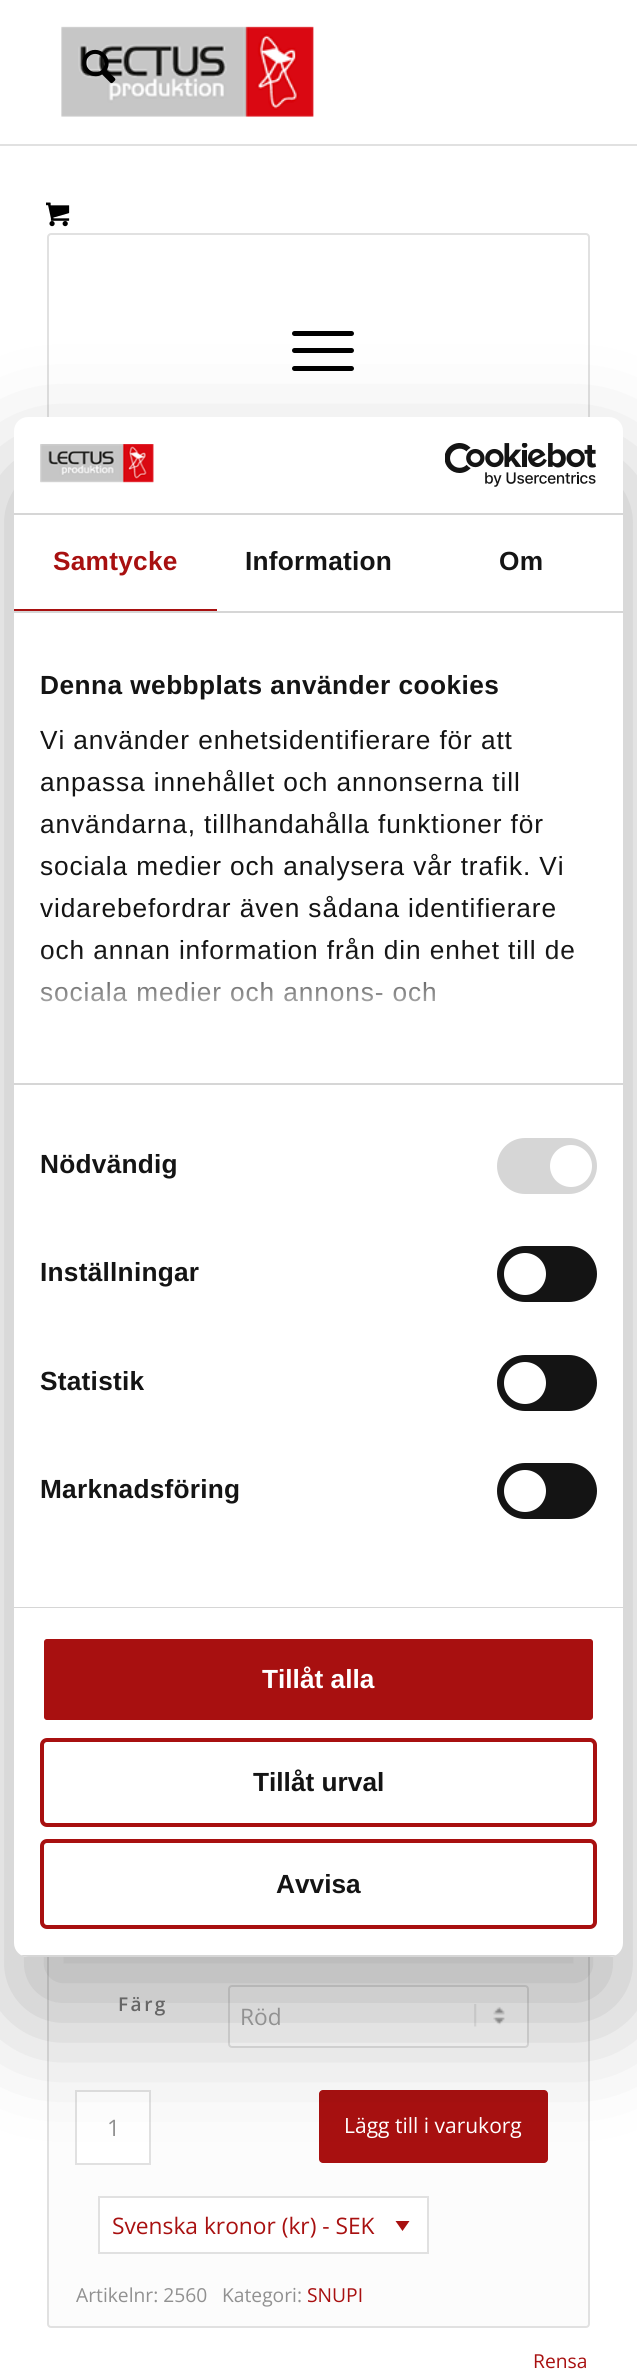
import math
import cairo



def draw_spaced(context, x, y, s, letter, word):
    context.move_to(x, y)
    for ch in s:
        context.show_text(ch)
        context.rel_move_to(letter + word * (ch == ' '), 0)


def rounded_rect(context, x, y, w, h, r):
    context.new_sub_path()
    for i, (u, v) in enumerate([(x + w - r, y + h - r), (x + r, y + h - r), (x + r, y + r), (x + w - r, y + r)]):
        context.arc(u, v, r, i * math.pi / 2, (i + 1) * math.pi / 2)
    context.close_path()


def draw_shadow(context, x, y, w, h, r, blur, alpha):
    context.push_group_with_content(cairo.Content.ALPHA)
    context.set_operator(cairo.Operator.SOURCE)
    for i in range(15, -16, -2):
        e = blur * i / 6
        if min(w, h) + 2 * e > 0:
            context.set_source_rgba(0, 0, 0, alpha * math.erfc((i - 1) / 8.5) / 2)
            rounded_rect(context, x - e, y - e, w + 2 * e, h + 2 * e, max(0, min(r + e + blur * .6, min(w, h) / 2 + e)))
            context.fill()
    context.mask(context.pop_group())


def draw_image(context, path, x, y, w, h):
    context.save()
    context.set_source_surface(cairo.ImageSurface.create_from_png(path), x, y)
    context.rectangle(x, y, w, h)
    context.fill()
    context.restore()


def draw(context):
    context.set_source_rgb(1, 1, 1)
    context.paint()
    context.new_path()
    context.move_to(51, 234)
    context.line_to(586, 234)
    context.curve_to(587.5, 234, 589, 235.5, 589, 237)
    context.line_to(589, 773)
    context.line_to(48, 773)
    context.line_to(48, 237)
    context.curve_to(48, 235.5, 49.5, 234, 51, 234)
    context.close_path()
    context.set_source_rgb(225 / 255, 225 / 255, 225 / 255)
    context.stroke()
    context.set_source_rgb(0, 0, 0)
    rounded_rect(context, 292, 348, 62, 5, 2.5)
    context.fill()
    rounded_rect(context, 292, 331, 62, 5, 2.5)
    context.fill()
    rounded_rect(context, 292, 366, 62, 5, 2.5)
    context.fill()
    context.set_source_rgb(252 / 255, 252 / 255, 252 / 255)
    rounded_rect(context, 48, 1942, 541, 385, 3)
    context.fill_preserve()
    context.set_source_rgb(225 / 255, 225 / 255, 225 / 255)
    context.stroke()
    context.set_source_rgb(1, 1, 1)
    rounded_rect(context, 228, 1985, 301, 63, 4)
    context.fill()
    draw_image(context, "images/6.png", 474, 2004, 31, 23)
    rounded_rect(context, 229, 1986, 299, 61, 3)
    context.set_source_rgb(225 / 255, 225 / 255, 225 / 255)
    context.stroke()
    context.set_source_rgb(1, 1, 1)
    context.rectangle(76, 2091, 74, 73)
    context.fill_preserve()
    context.set_source_rgb(225 / 255, 225 / 255, 225 / 255)
    context.stroke()
    context.set_source_rgb(168 / 255, 16 / 255, 16 / 255)
    rounded_rect(context, 319, 2090, 229, 73, 4)
    context.fill()
    context.set_source_rgb(0, 0, 0)
    draw_shadow(context, 14, 473, 609, 1540, 14, 59.5, 0.3)
    context.set_source_rgb(1, 1, 1)
    rounded_rect(context, 14, 417, 609, 1540, 14)
    context.fill()
    context.set_source_rgb(214 / 255, 214 / 255, 214 / 255)
    context.rectangle(14, 513, 609, 2)
    context.fill()
    draw_image(context, "images/1.png", 40, 444, 114, 39)
    draw_image(context, "images/2.png", 445, 443, 152, 44)
    context.rectangle(14, 611, 609, 2)
    context.fill()
    context.set_source_rgb(168 / 255, 16 / 255, 16 / 255)
    context.rectangle(14, 609, 203, 2)
    context.fill()
    context.set_source_rgb(214 / 255, 214 / 255, 214 / 255)
    context.rectangle(14, 1083, 609, 2)
    context.fill()
    context.rectangle(14, 1607, 609, 1)
    context.fill()
    rounded_rect(context, 497, 1138, 100, 56, 28)
    context.fill()
    context.set_source_rgb(1, 1, 1)
    context.arc(571, 1166, 21, 0, 2 * math.pi)
    context.fill()
    context.set_source_rgb(20 / 255, 20 / 255, 20 / 255)
    rounded_rect(context, 497, 1246, 100, 56, 28)
    context.fill()
    context.set_source_rgb(1, 1, 1)
    context.arc(525, 1274, 21, 0, 2 * math.pi)
    context.fill()
    context.set_source_rgb(20 / 255, 20 / 255, 20 / 255)
    rounded_rect(context, 497, 1355, 100, 56, 28)
    context.fill()
    context.set_source_rgb(1, 1, 1)
    context.arc(525, 1383, 21, 0, 2 * math.pi)
    context.fill()
    context.set_source_rgb(20 / 255, 20 / 255, 20 / 255)
    rounded_rect(context, 497, 1463, 100, 56, 28)
    context.fill()
    context.set_source_rgb(1, 1, 1)
    context.arc(525, 1491, 21, 0, 2 * math.pi)
    context.fill()
    context.save()
    rounded_rect(context, 14, 417, 609, 1540, 14)
    context.clip()
    context.set_source_rgb(214 / 255, 214 / 255, 214 / 255)
    context.rectangle(14, 1955, 609, 2)
    context.fill()
    context.restore()
    context.set_source_rgb(168 / 255, 16 / 255, 16 / 255)
    rounded_rect(context, 42, 1637, 553, 85, 5)
    context.fill_preserve()
    context.set_source_rgb(1, 1, 1)
    context.set_line_width(4)
    context.stroke()
    rounded_rect(context, 42, 1740, 553, 85, 5)
    context.set_source_rgb(168 / 255, 16 / 255, 16 / 255)
    context.stroke()
    rounded_rect(context, 42, 1841, 553, 86, 5)
    context.stroke()
    draw_image(context, "images/3.png", 61, 26, 253, 91)
    draw_image(context, "images/4.png", 46, 202, 24, 25)
    draw_image(context, "images/5.png", 82, 49, 34, 35)
    context.set_source_rgb(225 / 255, 225 / 255, 225 / 255)
    context.rectangle(0, 144, 637, 2)
    context.fill()
    context.set_source_rgb(1, 1, 1)
    context.rectangle(99, 2197, 329, 56)
    context.fill_preserve()
    context.set_source_rgb(225 / 255, 225 / 255, 225 / 255)
    context.set_line_width(2)
    context.stroke()
    context.set_source_rgb(168 / 255, 16 / 255, 16 / 255)
    context.new_path()
    context.move_to(395.5, 2221)
    context.line_to(409.5, 2221)
    context.line_to(402.5, 2231)
    context.close_path()
    context.fill()
    context.select_font_face("Liberation Sans", cairo.FontSlant.NORMAL, cairo.FontWeight.BOLD)
    context.set_font_size(26.25)
    draw_spaced(context, 53, 570, "Samtycke", 0.25, 0)
    context.set_source_rgb(20 / 255, 20 / 255, 20 / 255)
    draw_spaced(context, 245, 570, "Information", 0.25, 0)
    draw_spaced(context, 499, 570, "Om", 0.25, 0)
    draw_spaced(context, 40, 694, "Denna webbplats använder cookies", 0.45, 0)
    context.select_font_face("Liberation Sans")
    draw_spaced(context, 40, 749, "Vi använder enhetsidentifierare för att", 0.9, 0)
    draw_spaced(context, 40, 791, "anpassa innehållet och annonserna till", 0.9, 0)
    draw_spaced(context, 40, 833, "användarna, tillhandahålla funktioner för", 0.9, 0)
    draw_spaced(context, 40, 875, "sociala medier och analysera vår trafik. Vi", 0.9, 0)
    draw_spaced(context, 40, 917, "vidarebefordrar även sådana identifierare", 0.9, 0)
    draw_spaced(context, 40, 959, "och annan information från din enhet till de", 0.9, 0)
    draw_spaced(context, 40, 1001, "sociala medier och annons- och", 0.9, 0)
    gradient = cairo.LinearGradient(307, 1083, 307, 952)
    gradient.add_color_stop_rgba(0, 1, 1, 1, 1)
    gradient.add_color_stop_rgba(0.5, 1, 1, 1, 0.8)
    gradient.add_color_stop_rgba(1, 1, 1, 1, 0)
    context.set_source(gradient)
    context.rectangle(41, 954, 532, 48)
    context.fill()
    context.select_font_face("Liberation Sans", cairo.FontSlant.NORMAL, cairo.FontWeight.BOLD)
    context.set_source_rgb(20 / 255, 20 / 255, 20 / 255)
    draw_spaced(context, 40, 1173, "Nödvändig", 0.25, 0)
    draw_spaced(context, 40, 1281, "Inställningar", 0.25, 0)
    draw_spaced(context, 40, 1390, "Statistik", 0.25, 0)
    draw_spaced(context, 40, 1498, "Marknadsföring", 0.25, 0)
    context.set_source_rgb(1, 1, 1)
    context.move_to(262, 1688)
    context.show_text("Tillåt alla")
    context.set_source_rgb(20 / 255, 20 / 255, 20 / 255)
    context.move_to(253, 1791)
    context.show_text("Tillåt urval")
    context.move_to(276, 1893)
    context.show_text("Avvisa")
    context.select_font_face("Open Sans SemiBold")
    context.set_font_size(19)
    context.set_source_rgb(102 / 255, 102 / 255, 102 / 255)
    draw_spaced(context, 118, 2011, "Färg", 2.5, 0)
    context.select_font_face("Open Sans")
    context.set_font_size(22.75)
    context.set_source_rgb(145 / 255, 145 / 255, 145 / 255)
    context.move_to(240, 2025)
    context.show_text("Röd")
    context.set_font_size(19.25)
    context.set_source_rgb(168 / 255, 16 / 255, 16 / 255)
    context.move_to(533, 2368)
    context.show_text("Rensa")
    context.set_font_size(22.75)
    context.set_source_rgb(145 / 255, 145 / 255, 145 / 255)
    context.move_to(107, 2136)
    context.show_text("1")
    context.set_font_size(21)
    context.set_source_rgb(1, 1, 1)
    context.move_to(344, 2133)
    context.show_text("Lägg till i varukorg")
    context.set_font_size(22.75)
    context.set_source_rgb(168 / 255, 16 / 255, 16 / 255)
    context.move_to(112, 2234)
    context.show_text("Svenska kronor (kr) - SEK")
    context.set_font_size(19.25)
    context.set_source_rgb(145 / 255, 145 / 255, 145 / 255)
    context.move_to(76, 2302)
    context.show_text("Artikelnr: 2560")
    context.move_to(222, 2302)
    context.show_text("Kategori:")
    context.set_source_rgb(168 / 255, 16 / 255, 16 / 255)
    context.move_to(307, 2302)
    context.show_text("SNUPI")


surface = cairo.ImageSurface(cairo.Format.RGB24, 637, 2370)
context = cairo.Context(surface)
options = cairo.FontOptions()
options.set_hint_metrics(cairo.HintMetrics.OFF)
options.set_hint_style(cairo.HintStyle.NONE)
context.set_font_options(options)
context.set_miter_limit(4)
draw(context)
surface.write_to_png("out.png")
